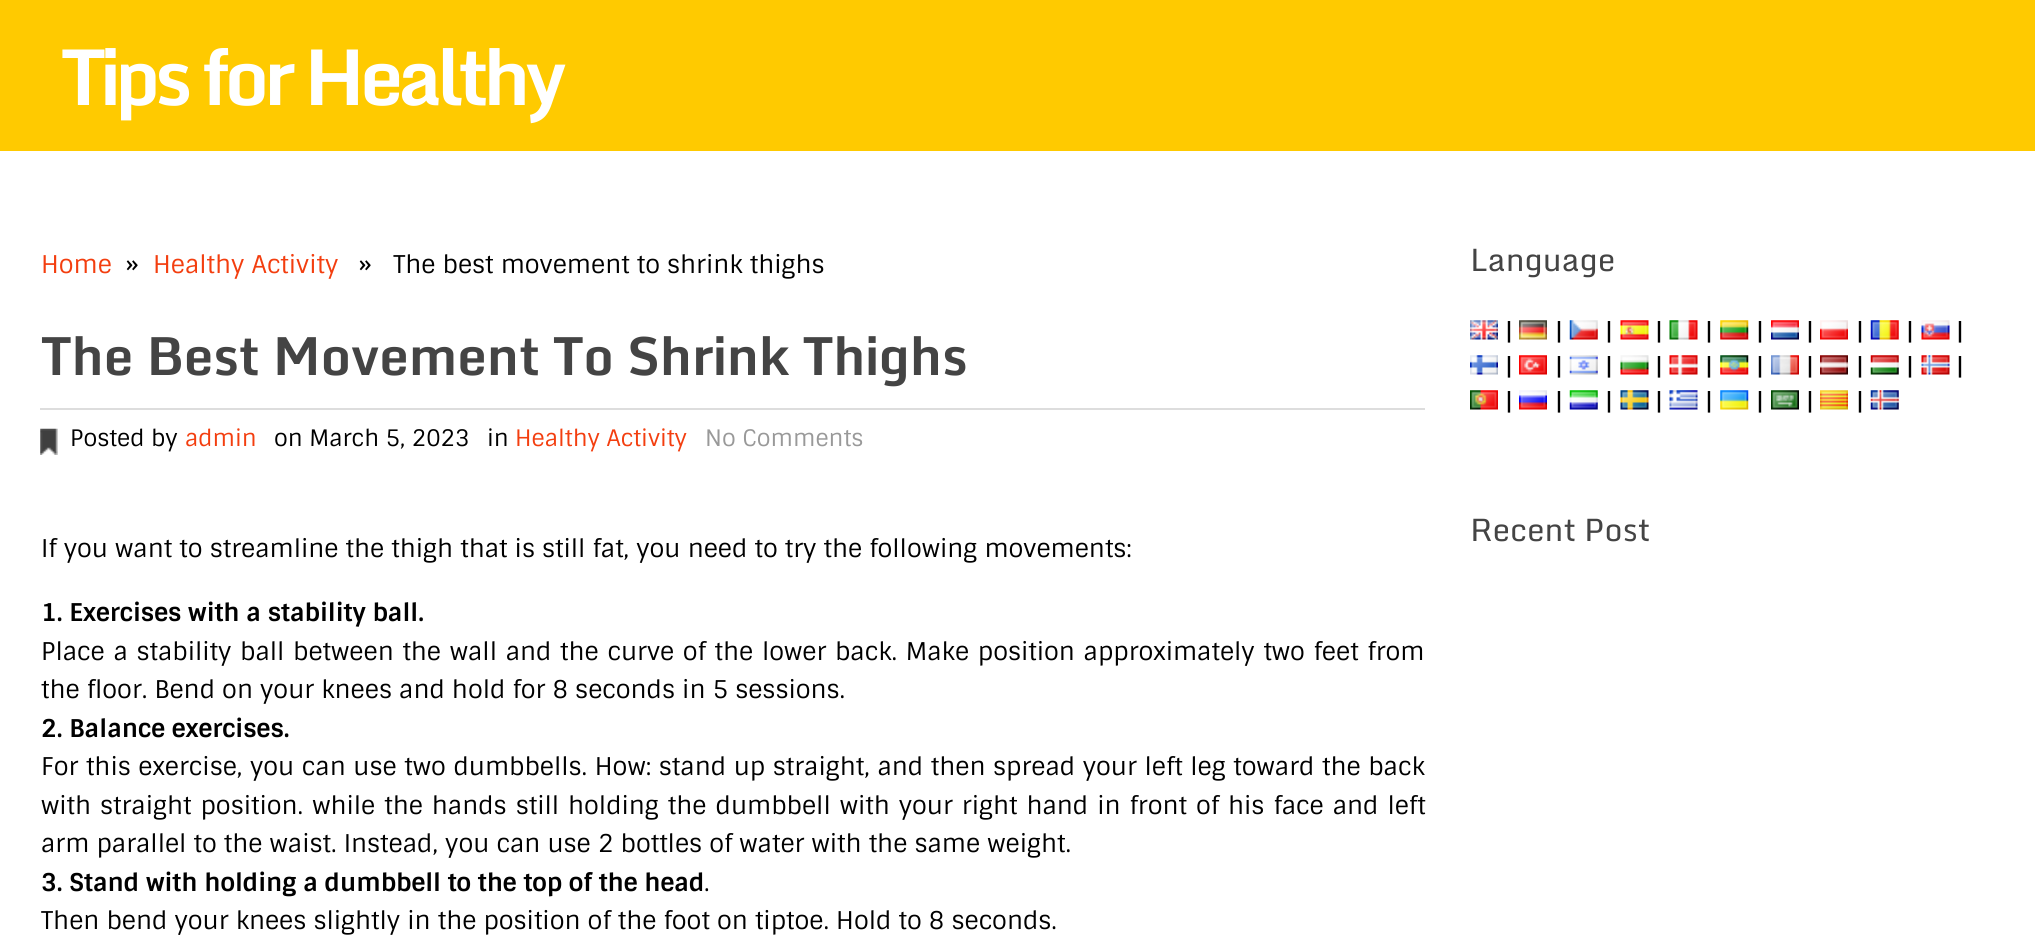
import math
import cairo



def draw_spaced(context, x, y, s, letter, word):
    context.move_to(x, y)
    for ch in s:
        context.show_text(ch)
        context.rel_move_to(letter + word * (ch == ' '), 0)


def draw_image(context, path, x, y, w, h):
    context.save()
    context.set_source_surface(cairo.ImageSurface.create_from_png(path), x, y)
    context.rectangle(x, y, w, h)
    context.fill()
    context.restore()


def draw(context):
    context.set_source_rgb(1, 1, 1)
    context.paint()
    context.set_source_rgb(1, 202 / 255, 0)
    context.rectangle(0, 0, 2035, 151)
    context.fill()
    context.set_source_rgb(221 / 255, 221 / 255, 221 / 255)
    context.rectangle(40, 408, 1385, 2)
    context.fill()
    draw_image(context, "images/1.png", 40, 428, 18, 27)
    draw_image(context, "images/2.png", 1470, 320, 28, 20)
    draw_image(context, "images/3.png", 1519, 320, 28, 20)
    draw_image(context, "images/4.png", 1569, 320, 29, 20)
    draw_image(context, "images/5.png", 1620, 320, 29, 20)
    draw_image(context, "images/6.png", 1669, 320, 29, 20)
    draw_image(context, "images/7.png", 1720, 320, 29, 20)
    draw_image(context, "images/8.png", 1771, 320, 28, 20)
    draw_image(context, "images/9.png", 1820, 320, 28, 20)
    draw_image(context, "images/10.png", 1870, 320, 29, 20)
    draw_image(context, "images/11.png", 1921, 320, 29, 20)
    draw_image(context, "images/12.png", 1470, 355, 28, 20)
    draw_image(context, "images/13.png", 1519, 355, 28, 20)
    draw_image(context, "images/14.png", 1569, 355, 29, 20)
    draw_image(context, "images/15.png", 1620, 355, 29, 20)
    draw_image(context, "images/16.png", 1669, 355, 29, 20)
    draw_image(context, "images/17.png", 1720, 355, 29, 20)
    draw_image(context, "images/18.png", 1771, 355, 28, 20)
    draw_image(context, "images/19.png", 1820, 355, 28, 20)
    draw_image(context, "images/20.png", 1870, 355, 29, 20)
    draw_image(context, "images/21.png", 1921, 355, 29, 20)
    draw_image(context, "images/22.png", 1470, 390, 28, 20)
    draw_image(context, "images/23.png", 1519, 390, 28, 20)
    draw_image(context, "images/24.png", 1569, 390, 29, 20)
    draw_image(context, "images/25.png", 1620, 390, 29, 20)
    draw_image(context, "images/26.png", 1669, 390, 29, 20)
    draw_image(context, "images/27.png", 1720, 390, 29, 20)
    draw_image(context, "images/28.png", 1771, 390, 28, 20)
    draw_image(context, "images/29.png", 1820, 390, 28, 20)
    draw_image(context, "images/30.png", 1870, 390, 29, 20)
    context.select_font_face("Monda", cairo.FontSlant.NORMAL, cairo.FontWeight.BOLD)
    context.set_font_size(77)
    context.set_source_rgb(1, 1, 1)
    draw_spaced(context, 61, 105, "Tips for Healthy", -5.25, 0)
    context.select_font_face("Sintony")
    context.set_font_size(24.5)
    context.set_source_rgb(243 / 255, 62 / 255, 15 / 255)
    context.move_to(41, 273)
    context.show_text("Home")
    context.set_source_rgb(0, 0, 0)
    context.move_to(126, 273)
    context.show_text("»")
    context.set_source_rgb(243 / 255, 62 / 255, 15 / 255)
    context.move_to(153, 273)
    context.show_text("Healthy Activity")
    context.set_source_rgb(0, 0, 0)
    context.move_to(359, 273)
    context.show_text("»   The best movement to shrink thighs")
    context.select_font_face("Monda", cairo.FontSlant.NORMAL, cairo.FontWeight.BOLD)
    context.set_font_size(52.5)
    context.set_source_rgb(68 / 255, 68 / 255, 68 / 255)
    context.move_to(41, 375)
    context.show_text("The Best Movement To Shrink Thighs")
    context.select_font_face("Sintony")
    context.set_font_size(22.75)
    context.set_source_rgb(0, 0, 0)
    context.move_to(70, 446)
    context.show_text("Posted by")
    context.set_source_rgb(243 / 255, 62 / 255, 15 / 255)
    context.move_to(185, 446)
    context.show_text("admin")
    context.set_source_rgb(0, 0, 0)
    context.move_to(274, 446)
    context.show_text("on March 5, 2023")
    context.move_to(487, 446)
    context.show_text("in")
    context.set_source_rgb(243 / 255, 62 / 255, 15 / 255)
    context.move_to(515, 446)
    context.show_text("Healthy Activity")
    context.set_source_rgb(153 / 255, 153 / 255, 153 / 255)
    context.move_to(705, 446)
    context.show_text("No Comments")
    context.set_font_size(24.5)
    context.set_source_rgb(0, 0, 0)
    context.move_to(41, 557)
    context.show_text("If you want to streamline the thigh that is still fat, you need to try the following movements:")
    context.select_font_face("Sintony", cairo.FontSlant.NORMAL, cairo.FontWeight.BOLD)
    context.move_to(41, 621)
    context.show_text("1. Exercises with a stability ball.")
    context.select_font_face("Sintony")
    draw_spaced(context, 41, 660, "Place a stability ball between the wall and the curve of the lower back. Make position approximately two feet from", 0, 1.6)
    context.move_to(41, 698)
    context.show_text("the floor. Bend on your knees and hold for 8 seconds in 5 sessions.")
    context.select_font_face("Sintony", cairo.FontSlant.NORMAL, cairo.FontWeight.BOLD)
    context.move_to(41, 737)
    context.show_text("2. Balance exercises.")
    context.select_font_face("Sintony")
    draw_spaced(context, 41, 775, "For this exercise, you can use two dumbbells. How: stand up straight, and then spread your left leg toward the back", 0, 0.5)
    draw_spaced(context, 41, 814, "with straight position. while the hands still holding the dumbbell with your right hand in front of his face and left", 0, 1.9)
    context.move_to(41, 852)
    context.show_text("arm parallel to the waist. Instead, you can use 2 bottles of water with the same weight.")
    context.select_font_face("Sintony", cairo.FontSlant.NORMAL, cairo.FontWeight.BOLD)
    context.move_to(41, 891)
    context.show_text("3. Stand with holding a dumbbell to the top of the head")
    context.select_font_face("Sintony")
    context.move_to(704, 891)
    context.show_text(".")
    context.move_to(41, 929)
    context.show_text("Then bend your knees slightly in the position of the foot on tiptoe. Hold to 8 seconds.")
    context.select_font_face("Monda")
    context.set_font_size(31.5)
    context.set_source_rgb(68 / 255, 68 / 255, 68 / 255)
    context.move_to(1470, 271)
    context.show_text("Language")
    context.select_font_face("Sintony")
    context.set_font_size(24.5)
    context.set_source_rgb(0, 0, 0)
    context.move_to(1505, 340)
    context.show_text("|")
    context.move_to(1555, 340)
    context.show_text("|")
    context.move_to(1605, 340)
    context.show_text("|")
    context.move_to(1655, 340)
    context.show_text("|")
    context.move_to(1705, 340)
    context.show_text("|")
    context.move_to(1756, 340)
    context.show_text("|")
    context.move_to(1806, 340)
    context.show_text("|")
    context.move_to(1856, 340)
    context.show_text("|")
    context.move_to(1906, 340)
    context.show_text("|")
    context.move_to(1956, 340)
    context.show_text("|")
    context.move_to(1505, 375)
    context.show_text("|")
    context.move_to(1555, 375)
    context.show_text("|")
    context.move_to(1605, 375)
    context.show_text("|")
    context.move_to(1655, 375)
    context.show_text("|")
    context.move_to(1705, 375)
    context.show_text("|")
    context.move_to(1756, 375)
    context.show_text("|")
    context.move_to(1806, 375)
    context.show_text("|")
    context.move_to(1856, 375)
    context.show_text("|")
    context.move_to(1906, 375)
    context.show_text("|")
    context.move_to(1956, 375)
    context.show_text("|")
    context.move_to(1505, 410)
    context.show_text("|")
    context.move_to(1555, 410)
    context.show_text("|")
    context.move_to(1605, 410)
    context.show_text("|")
    context.move_to(1655, 410)
    context.show_text("|")
    context.move_to(1705, 410)
    context.show_text("|")
    context.move_to(1756, 410)
    context.show_text("|")
    context.move_to(1806, 410)
    context.show_text("|")
    context.move_to(1856, 410)
    context.show_text("|")
    context.select_font_face("Monda")
    context.set_font_size(31.5)
    context.set_source_rgb(68 / 255, 68 / 255, 68 / 255)
    context.move_to(1470, 541)
    context.show_text("Recent Post")


surface = cairo.ImageSurface(cairo.Format.RGB24, 2035, 942)
context = cairo.Context(surface)
options = cairo.FontOptions()
options.set_hint_metrics(cairo.HintMetrics.OFF)
options.set_hint_style(cairo.HintStyle.NONE)
context.set_font_options(options)
context.set_miter_limit(4)
draw(context)
surface.write_to_png("out.png")
